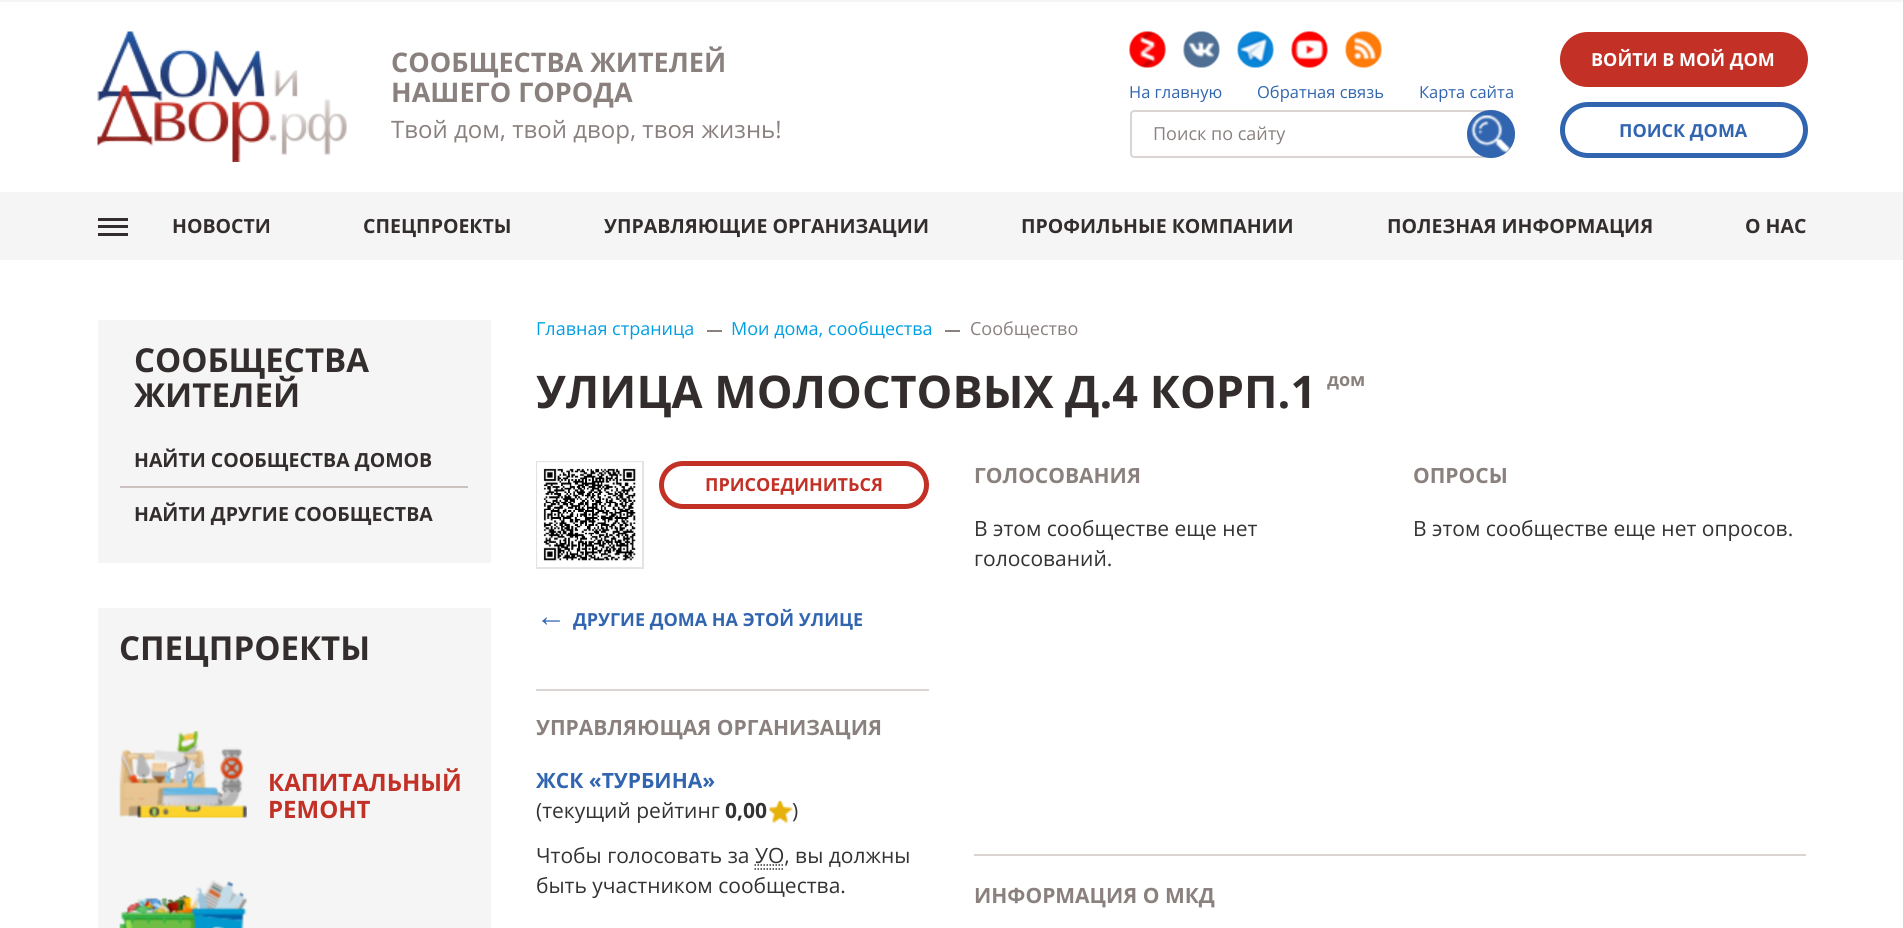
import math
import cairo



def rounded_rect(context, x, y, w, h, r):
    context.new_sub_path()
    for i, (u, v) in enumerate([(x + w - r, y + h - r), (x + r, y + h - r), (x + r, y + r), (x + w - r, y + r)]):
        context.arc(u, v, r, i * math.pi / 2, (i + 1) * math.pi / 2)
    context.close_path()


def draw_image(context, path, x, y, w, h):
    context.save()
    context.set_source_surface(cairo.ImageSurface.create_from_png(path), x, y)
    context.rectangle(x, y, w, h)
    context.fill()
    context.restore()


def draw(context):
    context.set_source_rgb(1, 1, 1)
    context.paint()
    context.set_source_rgb(245 / 255, 245 / 255, 245 / 255)
    context.rectangle(0, 0, 1903, 2)
    context.fill()
    draw_image(context, "images/1.png", 97, 31, 250, 131)
    draw_image(context, "images/2.png", 1129, 31, 37, 37)
    draw_image(context, "images/3.png", 1183, 31, 37, 37)
    draw_image(context, "images/4.png", 1237, 31, 37, 37)
    draw_image(context, "images/5.png", 1291, 31, 37, 37)
    draw_image(context, "images/6.png", 1345, 31, 37, 37)
    context.new_path()
    context.move_to(1134, 111)
    context.line_to(1491, 111)
    context.curve_to(1503.5, 111, 1514, 121.5, 1514, 134)
    context.curve_to(1514, 146.5, 1503.5, 157, 1491, 157)
    context.line_to(1134, 157)
    context.curve_to(1132.5, 157, 1131, 155.5, 1131, 154)
    context.line_to(1131, 114)
    context.curve_to(1131, 112.5, 1132.5, 111, 1134, 111)
    context.close_path()
    context.set_source_rgb(218 / 255, 212 / 255, 210 / 255)
    context.stroke()
    context.set_source_rgb(49 / 255, 101 / 255, 175 / 255)
    context.arc(1491, 134, 24, 0, 2 * math.pi)
    context.fill()
    draw_image(context, "images/7.png", 1471, 115, 39, 38)
    context.set_source_rgb(194 / 255, 48 / 255, 38 / 255)
    rounded_rect(context, 1560, 32, 248, 55, 27.5)
    context.fill()
    rounded_rect(context, 1562.5, 104.5, 243, 51, 25.5)
    context.set_source_rgb(49 / 255, 101 / 255, 175 / 255)
    context.set_line_width(5)
    context.stroke()
    context.set_source_rgb(245 / 255, 245 / 255, 245 / 255)
    context.rectangle(0, 192, 1903, 68)
    context.fill()
    context.set_source_rgb(51 / 255, 46 / 255, 45 / 255)
    context.rectangle(98, 225, 30, 3)
    context.fill()
    context.rectangle(98, 218, 30, 3)
    context.fill()
    context.rectangle(98, 233, 30, 3)
    context.fill()
    context.set_source_rgb(245 / 255, 245 / 255, 245 / 255)
    context.rectangle(98, 320, 393, 243)
    context.fill()
    context.set_source_rgb(203 / 255, 194 / 255, 192 / 255)
    context.rectangle(120, 486, 348, 2)
    context.fill()
    context.set_source_rgb(245 / 255, 245 / 255, 245 / 255)
    context.rectangle(98, 608, 393, 320)
    context.fill()
    draw_image(context, "images/8.png", 119, 731, 128, 87)
    draw_image(context, "images/9.png", 119, 880, 128, 48)
    context.set_source_rgb(138 / 255, 129 / 255, 127 / 255)
    context.rectangle(707, 330, 15, 2)
    context.fill()
    context.rectangle(945, 330, 15, 2)
    context.fill()
    context.rectangle(537, 462, 106, 106)
    context.set_source_rgb(229 / 255, 228 / 255, 229 / 255)
    context.set_line_width(2)
    context.stroke()
    draw_image(context, "images/10.png", 537, 462, 105, 105)
    rounded_rect(context, 661.5, 463.5, 265, 43, 21.5)
    context.set_source_rgb(194 / 255, 48 / 255, 38 / 255)
    context.set_line_width(5)
    context.stroke()
    context.set_source_rgb(218 / 255, 212 / 255, 210 / 255)
    context.rectangle(536, 689, 393, 2)
    context.fill()
    draw_image(context, "images/11.png", 769, 800, 24, 24)
    context.new_path()
    context.move_to(754.5, 869)
    context.line_to(784.5, 869)
    context.move_to(754.5, 865)
    context.line_to(784, 865)
    context.set_source_rgb(51 / 255, 51 / 255, 51 / 255)
    context.set_line_width(1.5)
    context.set_dash([1.5, 1.5])
    context.stroke()
    context.set_source_rgb(218 / 255, 212 / 255, 210 / 255)
    context.rectangle(974, 854, 832, 2)
    context.fill()
    context.select_font_face("Open Sans", cairo.FontSlant.NORMAL, cairo.FontWeight.BOLD)
    context.set_font_size(27)
    context.set_source_rgb(138 / 255, 129 / 255, 127 / 255)
    context.move_to(391, 72)
    context.show_text("СООБЩЕСТВА ЖИТЕЛЕЙ")
    context.move_to(391, 102)
    context.show_text("НАШЕГО ГОРОДА")
    context.select_font_face("Open Sans")
    context.set_font_size(24)
    context.move_to(391, 138)
    context.show_text("Твой дом, твой двор, твоя жизнь!")
    context.set_font_size(16.5)
    context.set_source_rgb(49 / 255, 101 / 255, 175 / 255)
    context.move_to(1129, 98)
    context.show_text("На главную")
    context.move_to(1257, 98)
    context.show_text("Обратная связь")
    context.move_to(1419, 98)
    context.show_text("Карта сайта")
    context.set_font_size(18)
    context.set_source_rgb(138 / 255, 129 / 255, 127 / 255)
    context.move_to(1153, 140)
    context.show_text("Поиск по сайту")
    context.select_font_face("Open Sans", cairo.FontSlant.NORMAL, cairo.FontWeight.BOLD)
    context.set_source_rgb(1, 1, 1)
    context.move_to(1591, 66)
    context.show_text("ВОЙТИ В МОЙ ДОМ")
    context.set_source_rgb(49 / 255, 101 / 255, 175 / 255)
    context.move_to(1619, 137)
    context.show_text("ПОИСК ДОМА")
    context.set_font_size(19.5)
    context.set_source_rgb(51 / 255, 46 / 255, 45 / 255)
    context.move_to(172, 233)
    context.show_text("НОВОСТИ")
    context.move_to(363, 233)
    context.show_text("СПЕЦПРОЕКТЫ")
    context.move_to(604, 233)
    context.show_text("УПРАВЛЯЮЩИЕ ОРГАНИЗАЦИИ")
    context.move_to(1021, 233)
    context.show_text("ПРОФИЛЬНЫЕ КОМПАНИИ")
    context.move_to(1387, 233)
    context.show_text("ПОЛЕЗНАЯ ИНФОРМАЦИЯ")
    context.move_to(1745, 233)
    context.show_text("О НАС")
    context.set_font_size(33)
    context.move_to(134, 372)
    context.show_text("СООБЩЕСТВА")
    context.move_to(134, 407)
    context.show_text("ЖИТЕЛЕЙ")
    context.set_font_size(19.5)
    context.move_to(134, 467)
    context.show_text("НАЙТИ СООБЩЕСТВА ДОМОВ")
    context.move_to(134, 521)
    context.show_text("НАЙТИ ДРУГИЕ СООБЩЕСТВА")
    context.set_font_size(33)
    context.move_to(119, 660)
    context.show_text("СПЕЦПРОЕКТЫ")
    context.set_font_size(24)
    context.set_source_rgb(194 / 255, 48 / 255, 38 / 255)
    context.move_to(268, 791)
    context.show_text("КАПИТАЛЬНЫЙ")
    context.move_to(268, 818)
    context.show_text("РЕМОНТ")
    context.select_font_face("Open Sans")
    context.set_font_size(18)
    context.set_source_rgb(0, 158 / 255, 227 / 255)
    context.move_to(536, 335)
    context.show_text("Главная страница")
    context.move_to(731, 335)
    context.show_text("Мои дома, сообщества")
    context.set_source_rgb(138 / 255, 129 / 255, 127 / 255)
    context.move_to(970, 335)
    context.show_text("Сообщество")
    context.select_font_face("Open Sans", cairo.FontSlant.NORMAL, cairo.FontWeight.BOLD)
    context.set_font_size(45)
    context.set_source_rgb(51 / 255, 46 / 255, 45 / 255)
    context.move_to(536, 408)
    context.show_text("УЛИЦА МОЛОСТОВЫХ Д.4 КОРП.1")
    context.set_font_size(18)
    context.set_source_rgb(138 / 255, 129 / 255, 127 / 255)
    context.move_to(1327, 386)
    context.show_text("дом")
    context.set_source_rgb(194 / 255, 48 / 255, 38 / 255)
    context.move_to(705, 491)
    context.show_text("ПРИСОЕДИНИТЬСЯ")
    context.select_font_face("Liberation Sans", cairo.FontSlant.NORMAL, cairo.FontWeight.BOLD)
    context.set_font_size(30)
    context.set_source_rgb(49 / 255, 101 / 255, 175 / 255)
    context.move_to(536, 626)
    context.show_text("←")
    context.select_font_face("Open Sans", cairo.FontSlant.NORMAL, cairo.FontWeight.BOLD)
    context.set_font_size(18)
    context.move_to(573, 626)
    context.show_text("ДРУГИЕ ДОМА НА ЭТОЙ УЛИЦЕ")
    context.set_font_size(21)
    context.set_source_rgb(138 / 255, 129 / 255, 127 / 255)
    context.move_to(536, 735)
    context.show_text("УПРАВЛЯЮЩАЯ ОРГАНИЗАЦИЯ")
    context.set_source_rgb(49 / 255, 101 / 255, 175 / 255)
    context.move_to(536, 788)
    context.show_text("ЖСК «ТУРБИНА»")
    context.select_font_face("Open Sans")
    context.set_source_rgb(51 / 255, 51 / 255, 51 / 255)
    context.move_to(536, 818)
    context.show_text("(текущий рейтинг")
    context.select_font_face("Open Sans", cairo.FontSlant.NORMAL, cairo.FontWeight.BOLD)
    context.move_to(725, 818)
    context.show_text("0,00")
    context.select_font_face("Open Sans")
    context.move_to(792, 818)
    context.show_text(")")
    context.move_to(536, 863)
    context.show_text("Чтобы голосовать за УО, вы должны")
    context.move_to(536, 893)
    context.show_text("быть участником сообщества.")
    context.select_font_face("Open Sans", cairo.FontSlant.NORMAL, cairo.FontWeight.BOLD)
    context.set_source_rgb(138 / 255, 129 / 255, 127 / 255)
    context.move_to(974, 483)
    context.show_text("ГОЛОСОВАНИЯ")
    context.select_font_face("Open Sans")
    context.set_source_rgb(51 / 255, 51 / 255, 51 / 255)
    context.move_to(974, 536)
    context.show_text("В этом сообществе еще нет")
    context.move_to(974, 566)
    context.show_text("голосований.")
    context.select_font_face("Open Sans", cairo.FontSlant.NORMAL, cairo.FontWeight.BOLD)
    context.set_source_rgb(138 / 255, 129 / 255, 127 / 255)
    context.move_to(1413, 483)
    context.show_text("ОПРОСЫ")
    context.select_font_face("Open Sans")
    context.set_source_rgb(51 / 255, 51 / 255, 51 / 255)
    context.move_to(1413, 536)
    context.show_text("В этом сообществе еще нет опросов.")
    context.select_font_face("Open Sans", cairo.FontSlant.NORMAL, cairo.FontWeight.BOLD)
    context.set_source_rgb(138 / 255, 129 / 255, 127 / 255)
    context.move_to(974, 903)
    context.show_text("ИНФОРМАЦИЯ О МКД")


surface = cairo.ImageSurface(cairo.Format.RGB24, 1903, 928)
context = cairo.Context(surface)
options = cairo.FontOptions()
options.set_hint_metrics(cairo.HintMetrics.OFF)
options.set_hint_style(cairo.HintStyle.NONE)
context.set_font_options(options)
context.set_miter_limit(4)
draw(context)
surface.write_to_png("out.png")
